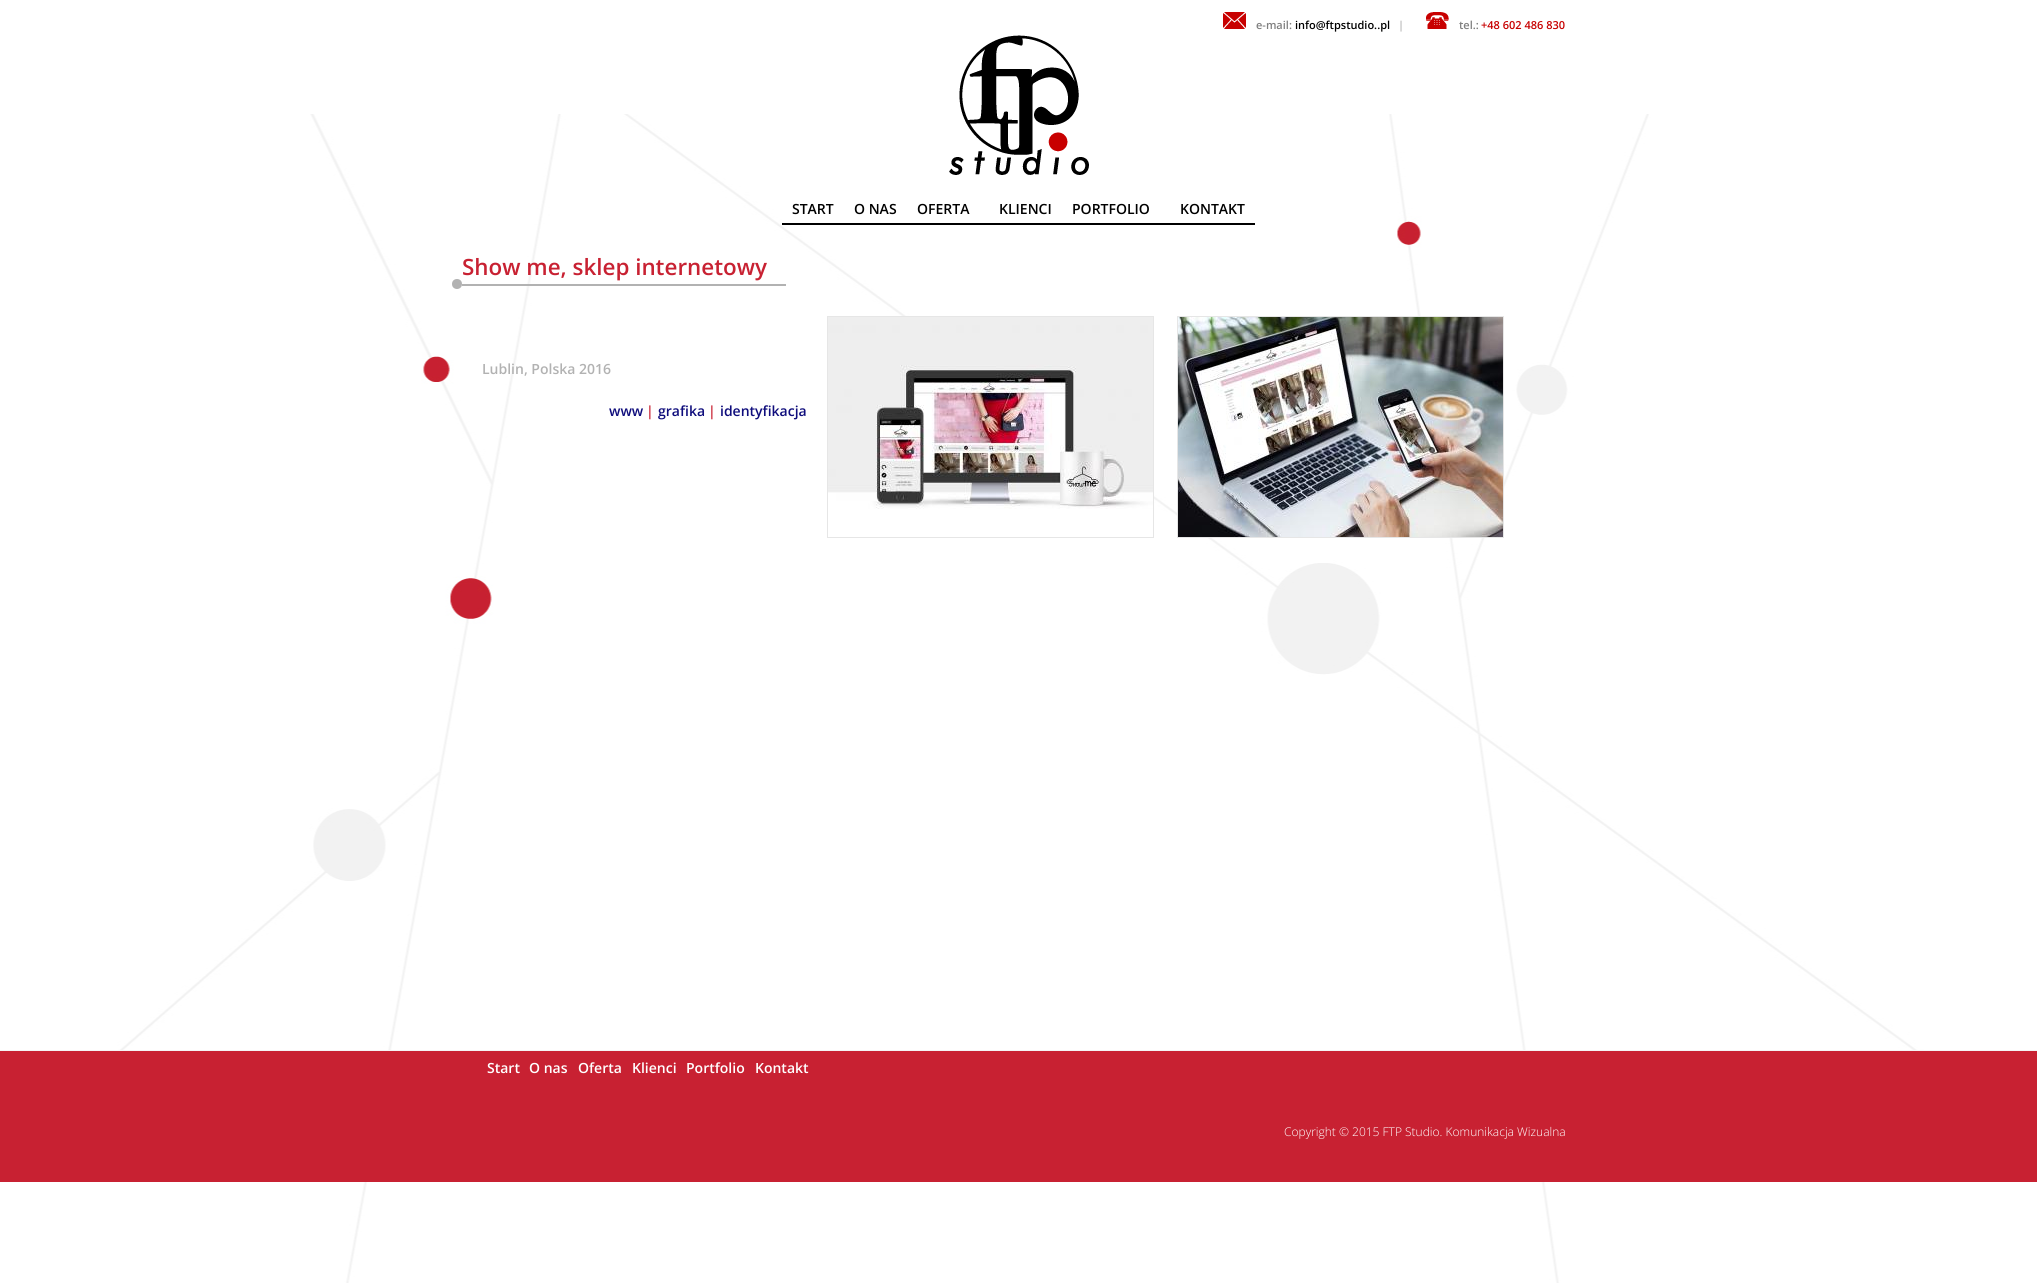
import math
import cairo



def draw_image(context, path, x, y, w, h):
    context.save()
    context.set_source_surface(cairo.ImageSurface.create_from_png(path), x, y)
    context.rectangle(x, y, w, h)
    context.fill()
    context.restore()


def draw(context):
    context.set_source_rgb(1, 1, 1)
    context.paint()
    draw_image(context, "images/1.png", 0, 114, 2037, 1169)
    draw_image(context, "images/2.png", 1223, 12, 23, 17)
    draw_image(context, "images/3.png", 1426, 12, 23, 17)
    draw_image(context, "images/4.png", 949, 35, 140, 140)
    context.set_source_rgb(0, 0, 0)
    context.rectangle(782, 223, 473, 2)
    context.fill()
    context.set_source_rgb(178 / 255, 178 / 255, 178 / 255)
    context.rectangle(462, 284, 324, 2)
    context.fill()
    context.arc(457, 284, 5, 0, 2 * math.pi)
    context.fill()
    context.rectangle(827.5, 316.5, 326, 221)
    context.set_source_rgb(230 / 255, 230 / 255, 230 / 255)
    context.set_line_width(1)
    context.stroke()
    draw_image(context, "images/5.png", 828, 317, 325, 192)
    context.rectangle(1177.5, 316.5, 326, 221)
    context.stroke()
    draw_image(context, "images/6.png", 1178, 317, 325, 220)
    context.set_source_rgb(200 / 255, 33 / 255, 50 / 255)
    context.rectangle(0, 1051, 2037, 131)
    context.fill()
    context.set_source_rgb(245 / 255, 245 / 255, 245 / 255)
    context.rectangle(0, 1050, 2037, 1)
    context.fill()
    context.select_font_face("Open Sans SemiBold")
    context.set_font_size(11)
    context.set_source_rgb(127 / 255, 127 / 255, 127 / 255)
    context.move_to(1256, 29)
    context.show_text("e-mail:")
    context.set_source_rgb(0, 0, 0)
    context.move_to(1295, 29)
    context.show_text("info@ftpstudio..pl")
    context.set_source_rgb(178 / 255, 178 / 255, 178 / 255)
    context.move_to(1398, 29)
    context.show_text("|")
    context.set_source_rgb(127 / 255, 127 / 255, 127 / 255)
    context.move_to(1459, 29)
    context.show_text("tel.:")
    context.set_source_rgb(199 / 255, 0, 0)
    context.move_to(1481, 29)
    context.show_text("+48 602 486 830")
    context.set_font_size(14)
    context.set_source_rgb(0, 0, 0)
    context.move_to(792, 214)
    context.show_text("START")
    context.move_to(854, 214)
    context.show_text("O NAS")
    context.move_to(917, 214)
    context.show_text("OFERTA")
    context.move_to(999, 214)
    context.show_text("KLIENCI")
    context.move_to(1072, 214)
    context.show_text("PORTFOLIO")
    context.move_to(1180, 214)
    context.show_text("KONTAKT")
    context.set_font_size(22.4)
    context.set_source_rgb(200 / 255, 33 / 255, 50 / 255)
    context.move_to(462, 275)
    context.show_text("Show me, sklep internetowy")
    context.set_font_size(14)
    context.set_source_rgb(178 / 255, 178 / 255, 178 / 255)
    context.move_to(482, 374)
    context.show_text("Lublin, Polska 2016")
    context.set_source_rgb(15 / 255, 13 / 255, 124 / 255)
    context.move_to(609, 416)
    context.show_text("www")
    context.set_source_rgb(200 / 255, 33 / 255, 50 / 255)
    context.move_to(646, 416)
    context.show_text("|")
    context.set_source_rgb(15 / 255, 13 / 255, 124 / 255)
    context.move_to(658, 416)
    context.show_text("grafika")
    context.set_source_rgb(200 / 255, 33 / 255, 50 / 255)
    context.move_to(708, 416)
    context.show_text("|")
    context.set_source_rgb(15 / 255, 13 / 255, 124 / 255)
    context.move_to(720, 416)
    context.show_text("identyfikacja")
    context.set_source_rgb(1, 1, 1)
    context.move_to(487, 1073)
    context.show_text("Start")
    context.move_to(529, 1073)
    context.show_text("O nas")
    context.move_to(578, 1073)
    context.show_text("Oferta")
    context.move_to(632, 1073)
    context.show_text("Klienci")
    context.move_to(686, 1073)
    context.show_text("Portfolio")
    context.move_to(755, 1073)
    context.show_text("Kontakt")
    context.select_font_face("Open Sans Light")
    context.set_font_size(12)
    context.move_to(1284, 1136)
    context.show_text("Copyright © 2015 FTP Studio. Komunikacja Wizualna")


surface = cairo.ImageSurface(cairo.Format.RGB24, 2037, 1283)
context = cairo.Context(surface)
options = cairo.FontOptions()
options.set_hint_metrics(cairo.HintMetrics.OFF)
options.set_hint_style(cairo.HintStyle.NONE)
context.set_font_options(options)
context.set_miter_limit(4)
draw(context)
surface.write_to_png("out.png")
